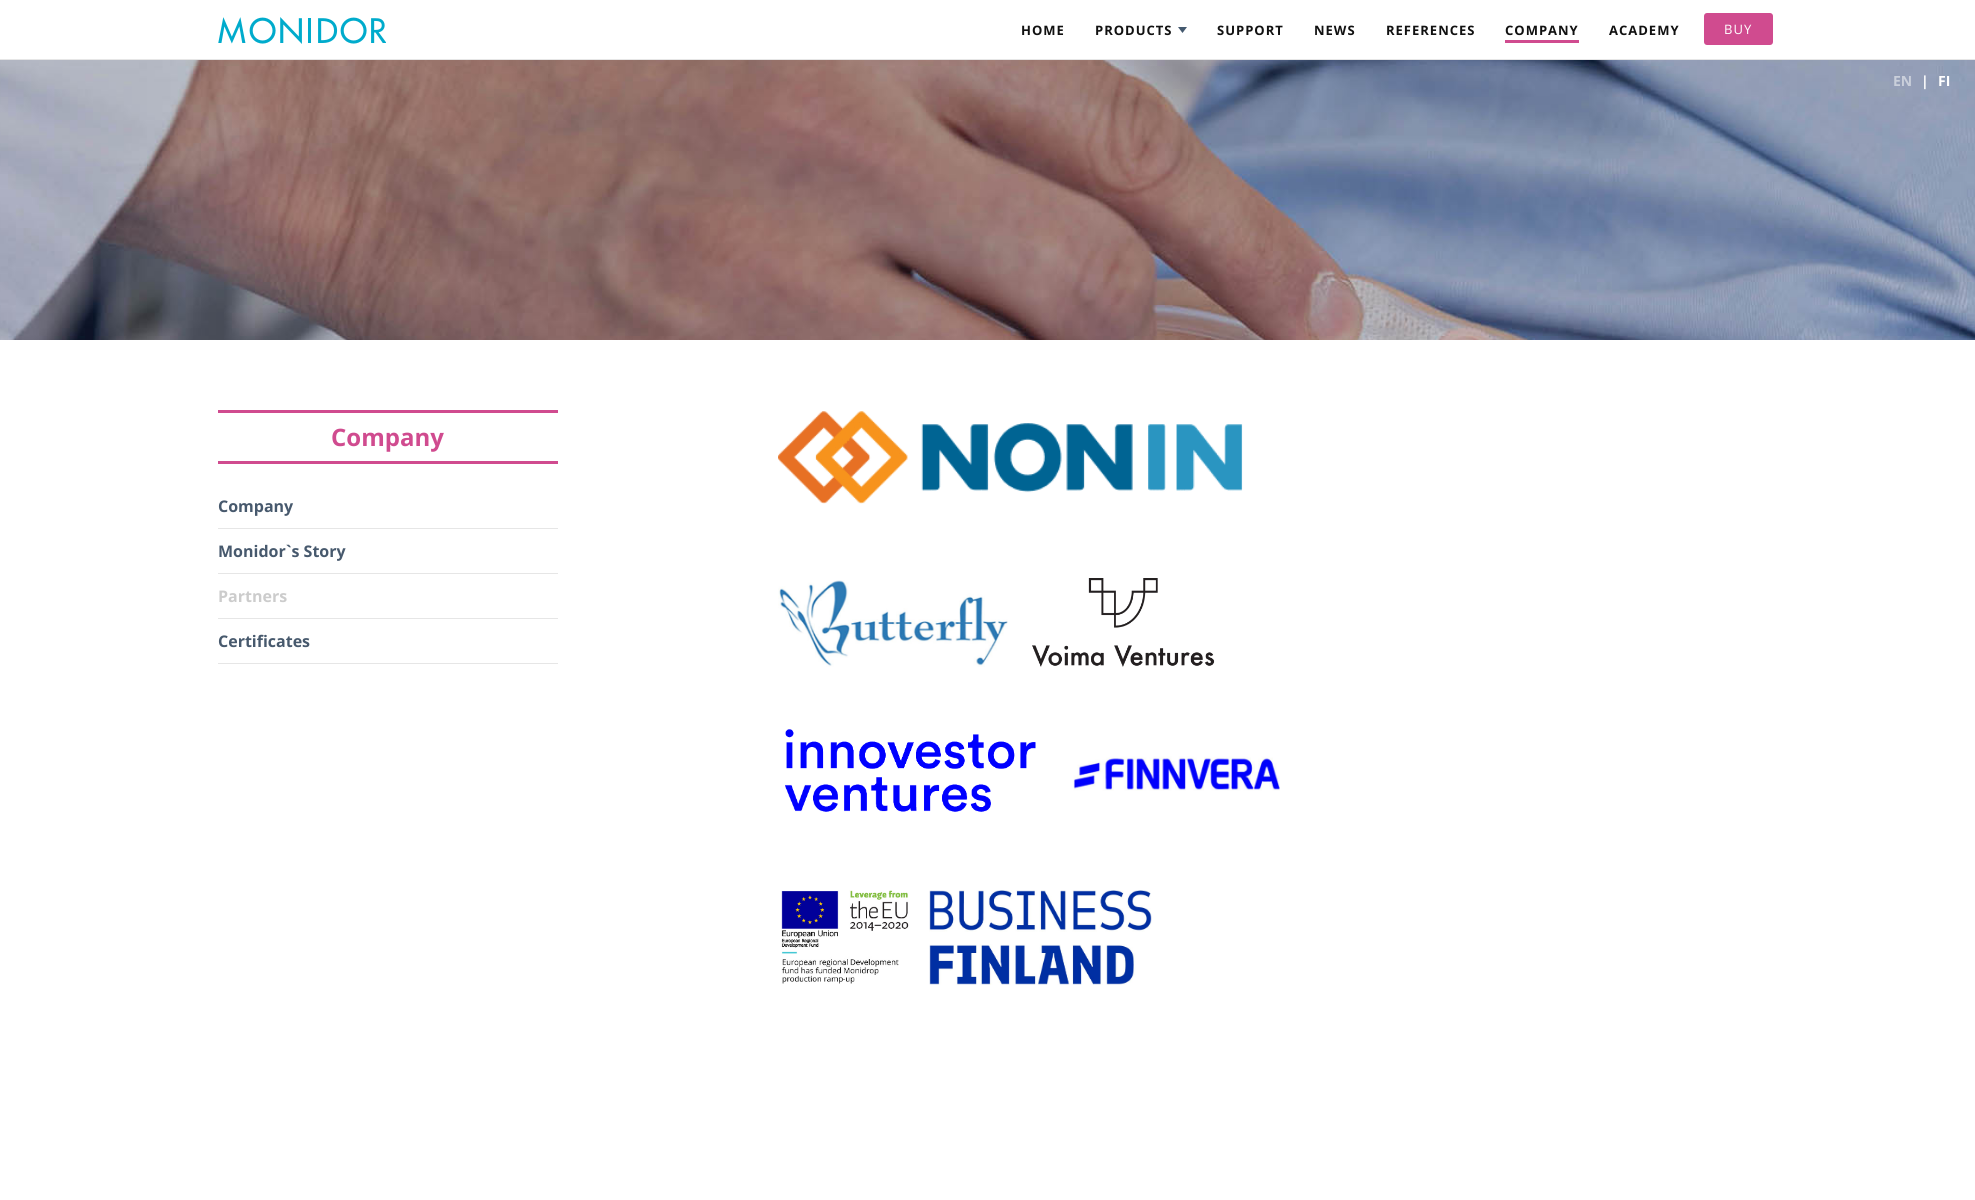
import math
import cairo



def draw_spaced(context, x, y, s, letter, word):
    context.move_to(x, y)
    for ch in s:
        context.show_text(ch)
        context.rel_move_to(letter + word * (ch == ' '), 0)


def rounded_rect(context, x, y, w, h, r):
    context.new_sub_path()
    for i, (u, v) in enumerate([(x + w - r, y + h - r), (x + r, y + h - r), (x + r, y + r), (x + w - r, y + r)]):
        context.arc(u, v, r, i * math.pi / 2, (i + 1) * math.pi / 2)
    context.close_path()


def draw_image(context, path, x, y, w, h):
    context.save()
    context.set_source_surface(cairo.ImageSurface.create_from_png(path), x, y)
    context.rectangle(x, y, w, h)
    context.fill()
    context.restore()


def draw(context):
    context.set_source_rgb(1, 1, 1)
    context.paint()
    context.set_source_rgb(230 / 255, 230 / 255, 230 / 255)
    context.rectangle(0, 59, 1975, 1)
    context.fill()
    draw_image(context, "images/1.png", 218, 17, 168, 27)
    context.set_source_rgb(68 / 255, 89 / 255, 111 / 255)
    context.new_path()
    context.move_to(1187, 27)
    context.line_to(1178, 27)
    context.line_to(1182.5, 33)
    context.close_path()
    context.fill()
    context.set_source_rgb(208 / 255, 75 / 255, 143 / 255)
    context.rectangle(1505, 40, 74, 3)
    context.fill()
    rounded_rect(context, 1704, 13, 69, 32, 3)
    context.fill()
    draw_image(context, "images/2.png", 0, 60, 1975, 280)
    context.rectangle(218, 410, 340, 3)
    context.fill()
    context.rectangle(218, 461, 340, 3)
    context.fill()
    context.set_source_rgb(230 / 255, 230 / 255, 230 / 255)
    context.rectangle(218, 528, 340, 1)
    context.fill()
    context.rectangle(218, 573, 340, 1)
    context.fill()
    context.rectangle(218, 618, 340, 1)
    context.fill()
    context.rectangle(218, 663, 340, 1)
    context.fill()
    draw_image(context, "images/3.png", 778, 411, 465, 93)
    draw_image(context, "images/4.png", 778, 580, 230, 87)
    draw_image(context, "images/5.png", 1032, 578, 183, 89)
    draw_image(context, "images/6.png", 785, 729, 251, 83)
    draw_image(context, "images/7.png", 1073, 756, 207, 35)
    draw_image(context, "images/8.png", 781, 890, 128, 94)
    draw_image(context, "images/9.png", 929, 890, 223, 95)
    context.select_font_face("Open Sans", cairo.FontSlant.NORMAL, cairo.FontWeight.BOLD)
    context.set_font_size(13)
    context.set_source_rgb(17 / 255, 17 / 255, 17 / 255)
    draw_spaced(context, 1021, 35, "HOME", 1, 0)
    draw_spaced(context, 1095, 35, "PRODUCTS", 1, 0)
    draw_spaced(context, 1217, 35, "SUPPORT", 1, 0)
    draw_spaced(context, 1314, 35, "NEWS", 1, 0)
    draw_spaced(context, 1386, 35, "REFERENCES", 1, 0)
    draw_spaced(context, 1505, 35, "COMPANY", 1, 0)
    draw_spaced(context, 1609, 35, "ACADEMY", 1, 0)
    context.select_font_face("Open Sans")
    context.set_source_rgb(1, 1, 1)
    draw_spaced(context, 1724, 34, "BUY", 1, 0)
    context.select_font_face("Open Sans", cairo.FontSlant.NORMAL, cairo.FontWeight.BOLD)
    context.set_font_size(14)
    context.set_source_rgb(202 / 255, 207 / 255, 219 / 255)
    context.move_to(1893, 86)
    context.show_text("EN")
    context.set_source_rgb(1, 1, 1)
    context.move_to(1921, 86)
    context.show_text("|")
    context.move_to(1938, 86)
    context.show_text("FI")
    context.set_font_size(24)
    context.set_source_rgb(208 / 255, 75 / 255, 143 / 255)
    context.move_to(331, 446)
    context.show_text("Company")
    context.set_font_size(16)
    context.set_source_rgb(71 / 255, 89 / 255, 109 / 255)
    context.move_to(218, 512)
    context.show_text("Company")
    context.move_to(218, 557)
    context.show_text("Monidor`s Story")
    context.set_source_rgb(204 / 255, 204 / 255, 204 / 255)
    context.move_to(218, 602)
    context.show_text("Partners")
    context.set_source_rgb(71 / 255, 89 / 255, 109 / 255)
    context.move_to(218, 647)
    context.show_text("Certificates")


surface = cairo.ImageSurface(cairo.Format.RGB24, 1975, 1200)
context = cairo.Context(surface)
options = cairo.FontOptions()
options.set_hint_metrics(cairo.HintMetrics.OFF)
options.set_hint_style(cairo.HintStyle.NONE)
context.set_font_options(options)
context.set_miter_limit(4)
draw(context)
surface.write_to_png("out.png")
